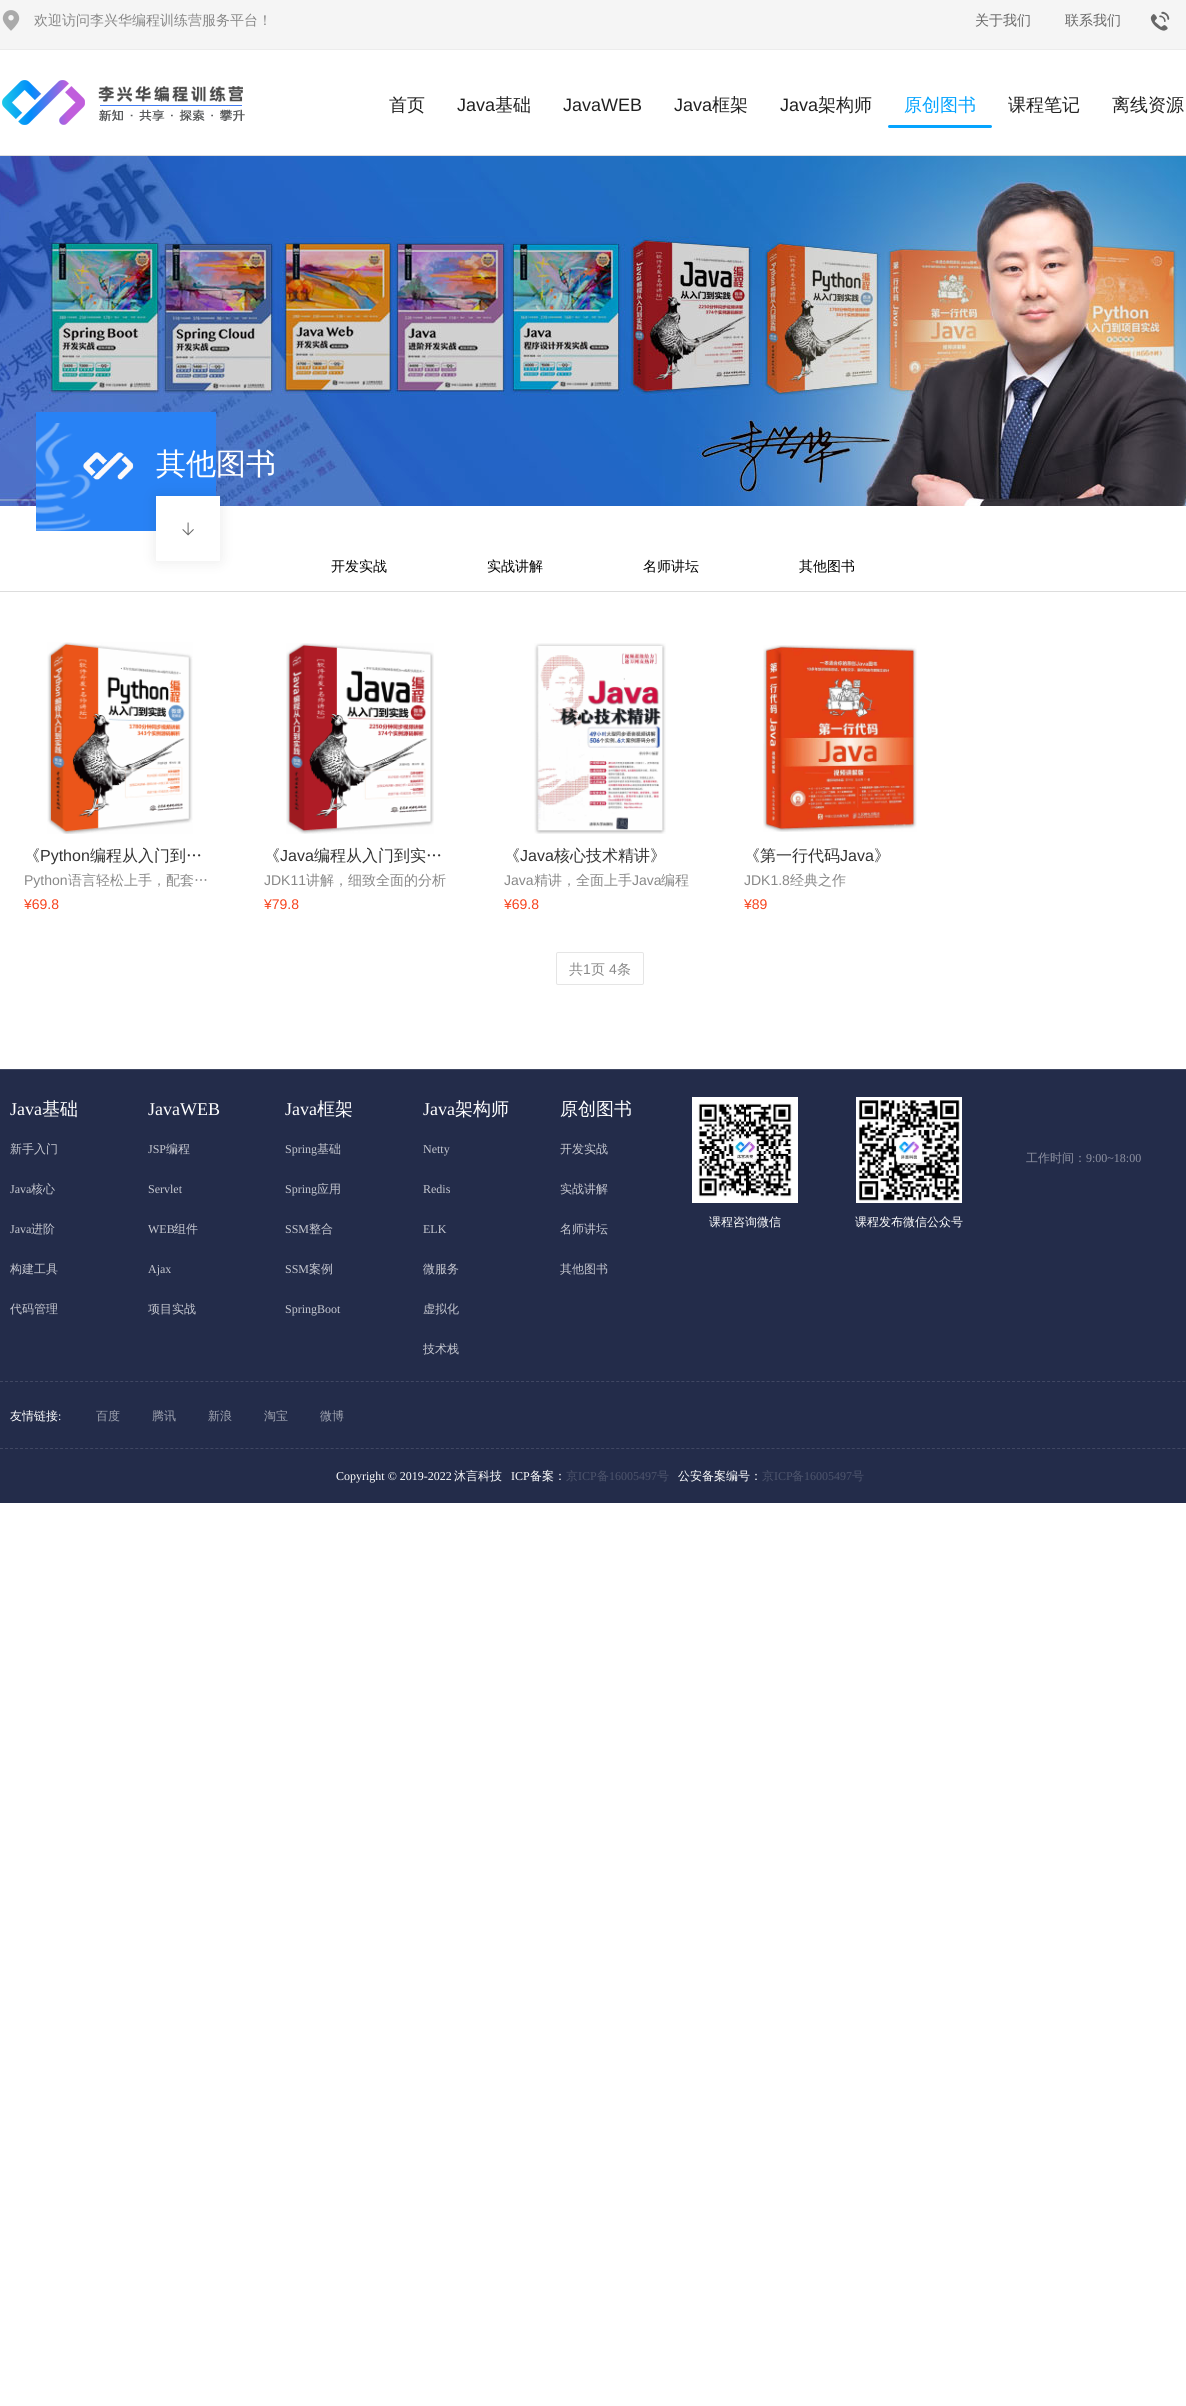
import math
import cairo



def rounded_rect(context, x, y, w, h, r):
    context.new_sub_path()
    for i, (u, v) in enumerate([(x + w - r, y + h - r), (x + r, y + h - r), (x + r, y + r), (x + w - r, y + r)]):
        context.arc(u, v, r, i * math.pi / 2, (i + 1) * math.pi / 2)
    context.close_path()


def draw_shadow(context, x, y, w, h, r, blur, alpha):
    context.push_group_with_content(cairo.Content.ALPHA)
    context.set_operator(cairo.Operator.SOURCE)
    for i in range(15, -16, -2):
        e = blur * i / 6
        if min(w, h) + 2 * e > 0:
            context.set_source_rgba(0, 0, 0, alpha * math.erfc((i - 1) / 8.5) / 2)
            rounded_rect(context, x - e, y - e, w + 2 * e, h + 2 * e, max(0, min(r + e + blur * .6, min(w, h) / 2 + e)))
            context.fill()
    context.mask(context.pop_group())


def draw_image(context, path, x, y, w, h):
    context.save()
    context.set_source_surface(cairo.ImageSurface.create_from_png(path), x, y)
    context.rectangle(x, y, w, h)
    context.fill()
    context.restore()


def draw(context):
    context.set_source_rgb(1, 1, 1)
    context.paint()
    context.set_source_rgb(245 / 255, 245 / 255, 245 / 255)
    context.rectangle(0, 0, 1186, 49)
    context.fill()
    context.set_source_rgb(236 / 255, 236 / 255, 236 / 255)
    context.rectangle(0, 49, 1186, 1)
    context.fill()
    draw_image(context, "images/1.png", 2, 10, 18, 21)
    draw_image(context, "images/2.png", 1150, 11, 20, 20)
    draw_image(context, "images/3.png", 2, 80, 243, 45)
    context.set_source_rgb(5 / 255, 164 / 255, 1)
    rounded_rect(context, 888, 125, 104, 3, 1.5)
    context.fill()
    context.set_source_rgb(221 / 255, 221 / 255, 221 / 255)
    context.rectangle(0, 155, 1186, 1)
    context.fill()
    draw_image(context, "images/4.png", 0, 156, 1186, 350)
    context.set_source_rgb(40 / 255, 130 / 255, 245 / 255)
    context.rectangle(36, 412, 180, 119)
    context.fill()
    draw_image(context, "images/5.png", 36, 423, 98, 108)
    context.set_source_rgb(0, 0, 0)
    draw_shadow(context, 157, 497, 62, 63, 0, 7.5, 0.1)
    context.set_source_rgb(1, 1, 1)
    context.rectangle(156, 496, 64, 65)
    context.fill()
    draw_image(context, "images/6.png", 182, 522, 12, 14)
    context.set_source_rgb(221 / 255, 221 / 255, 221 / 255)
    context.rectangle(0, 591, 1186, 1)
    context.fill()
    draw_image(context, "images/7.png", 47, 642, 146, 192)
    draw_image(context, "images/8.png", 286, 643, 148, 191)
    draw_image(context, "images/9.png", 534, 643, 132, 191)
    draw_image(context, "images/10.png", 763, 645, 154, 187)
    rounded_rect(context, 556.5, 952.5, 87, 32, 1.5)
    context.set_source_rgb(229 / 255, 229 / 255, 229 / 255)
    context.set_line_width(1)
    context.stroke()
    context.set_source_rgb(35 / 255, 44 / 255, 74 / 255)
    context.rectangle(0, 1070, 1186, 433)
    context.fill()
    context.set_source_rgb(64 / 255, 71 / 255, 98 / 255)
    context.rectangle(0, 1069, 1186, 1)
    context.fill()
    context.set_source_rgb(1, 1, 1)
    context.rectangle(692, 1097, 106, 106)
    context.fill()
    draw_image(context, "images/11.png", 698, 1103, 94, 94)
    context.rectangle(856, 1097, 106, 106)
    context.fill()
    draw_image(context, "images/12.png", 858, 1100, 102, 101)
    context.new_path()
    context.move_to(0, 1381.5)
    context.line_to(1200, 1381.5)
    context.set_source_rgb(64 / 255, 71 / 255, 98 / 255)
    context.set_dash([3, 2.01])
    context.stroke()
    context.new_path()
    context.move_to(0, 1448.5)
    context.line_to(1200, 1448.5)
    context.stroke()
    context.select_font_face("WenQuanYi Zen Hei Medium")
    context.set_font_size(14)
    context.set_source_rgb(136 / 255, 136 / 255, 136 / 255)
    context.move_to(34, 25)
    context.show_text("欢迎访问李兴华编程训练营服务平台！")
    context.set_source_rgb(102 / 255, 102 / 255, 102 / 255)
    context.move_to(975, 25)
    context.show_text("关于我们")
    context.move_to(1065, 25)
    context.show_text("联系我们")
    context.set_font_size(18)
    context.set_source_rgb(34 / 255, 34 / 255, 34 / 255)
    context.move_to(389, 111)
    context.show_text("首页")
    context.select_font_face("Liberation Sans")
    context.move_to(457, 111)
    context.show_text("Java")
    context.select_font_face("WenQuanYi Zen Hei Medium")
    context.move_to(495, 111)
    context.show_text("基础")
    context.select_font_face("Liberation Sans")
    context.move_to(563, 111)
    context.show_text("JavaWEB")
    context.move_to(674, 111)
    context.show_text("Java")
    context.select_font_face("WenQuanYi Zen Hei Medium")
    context.move_to(712, 111)
    context.show_text("框架")
    context.select_font_face("Liberation Sans")
    context.move_to(780, 111)
    context.show_text("Java")
    context.select_font_face("WenQuanYi Zen Hei Medium")
    context.move_to(818, 111)
    context.show_text("架构师")
    context.set_source_rgb(5 / 255, 164 / 255, 1)
    context.move_to(904, 111)
    context.show_text("原创图书")
    context.set_source_rgb(34 / 255, 34 / 255, 34 / 255)
    context.move_to(1008, 111)
    context.show_text("课程笔记")
    context.move_to(1112, 111)
    context.show_text("离线资源")
    context.set_font_size(30)
    context.set_source_rgb(1, 1, 1)
    context.move_to(156, 474)
    context.show_text("其他图书")
    context.set_font_size(14)
    context.set_source_rgb(0, 0, 0)
    context.move_to(331, 571)
    context.show_text("开发实战")
    context.move_to(487, 571)
    context.show_text("实战讲解")
    context.move_to(643, 571)
    context.show_text("名师讲坛")
    context.move_to(799, 571)
    context.show_text("其他图书")
    context.set_font_size(16)
    context.set_source_rgb(51 / 255, 51 / 255, 51 / 255)
    context.move_to(24, 861)
    context.show_text("《")
    context.select_font_face("Liberation Sans")
    context.move_to(40, 861)
    context.show_text("Python")
    context.select_font_face("WenQuanYi Zen Hei Medium")
    context.move_to(90, 861)
    context.show_text("编程从入门到…")
    context.select_font_face("Liberation Sans")
    context.set_font_size(14)
    context.set_source_rgb(136 / 255, 136 / 255, 136 / 255)
    context.move_to(24, 885)
    context.show_text("Python")
    context.select_font_face("WenQuanYi Zen Hei Medium")
    context.move_to(68, 885)
    context.show_text("语言轻松上手，配套…")
    context.select_font_face("Liberation Sans")
    context.set_source_rgb(247 / 255, 67 / 255, 29 / 255)
    context.move_to(24, 909)
    context.show_text("¥69.8")
    context.select_font_face("WenQuanYi Zen Hei Medium")
    context.set_font_size(16)
    context.set_source_rgb(51 / 255, 51 / 255, 51 / 255)
    context.move_to(264, 861)
    context.show_text("《")
    context.select_font_face("Liberation Sans")
    context.move_to(280, 861)
    context.show_text("Java")
    context.select_font_face("WenQuanYi Zen Hei Medium")
    context.move_to(314, 861)
    context.show_text("编程从入门到实…")
    context.select_font_face("Liberation Sans")
    context.set_font_size(14)
    context.set_source_rgb(136 / 255, 136 / 255, 136 / 255)
    context.move_to(264, 885)
    context.show_text("JDK11")
    context.select_font_face("WenQuanYi Zen Hei Medium")
    context.move_to(306, 885)
    context.show_text("讲解，细致全面的分析")
    context.select_font_face("Liberation Sans")
    context.set_source_rgb(247 / 255, 67 / 255, 29 / 255)
    context.move_to(264, 909)
    context.show_text("¥79.8")
    context.select_font_face("WenQuanYi Zen Hei Medium")
    context.set_font_size(16)
    context.set_source_rgb(51 / 255, 51 / 255, 51 / 255)
    context.move_to(504, 861)
    context.show_text("《")
    context.select_font_face("Liberation Sans")
    context.move_to(520, 861)
    context.show_text("Java")
    context.select_font_face("WenQuanYi Zen Hei Medium")
    context.move_to(554, 861)
    context.show_text("核心技术精讲》")
    context.select_font_face("Liberation Sans")
    context.set_font_size(14)
    context.set_source_rgb(136 / 255, 136 / 255, 136 / 255)
    context.move_to(504, 885)
    context.show_text("Java")
    context.select_font_face("WenQuanYi Zen Hei Medium")
    context.move_to(534, 885)
    context.show_text("精讲，全面上手")
    context.select_font_face("Liberation Sans")
    context.move_to(632, 885)
    context.show_text("Java")
    context.select_font_face("WenQuanYi Zen Hei Medium")
    context.move_to(661, 885)
    context.show_text("编程")
    context.select_font_face("Liberation Sans")
    context.set_source_rgb(247 / 255, 67 / 255, 29 / 255)
    context.move_to(504, 909)
    context.show_text("¥69.8")
    context.select_font_face("WenQuanYi Zen Hei Medium")
    context.set_font_size(16)
    context.set_source_rgb(51 / 255, 51 / 255, 51 / 255)
    context.move_to(744, 861)
    context.show_text("《第一行代码")
    context.select_font_face("Liberation Sans")
    context.move_to(840, 861)
    context.show_text("Java")
    context.select_font_face("WenQuanYi Zen Hei Medium")
    context.move_to(874, 861)
    context.show_text("》")
    context.select_font_face("Liberation Sans")
    context.set_font_size(14)
    context.set_source_rgb(136 / 255, 136 / 255, 136 / 255)
    context.move_to(744, 885)
    context.show_text("JDK1.8")
    context.select_font_face("WenQuanYi Zen Hei Medium")
    context.move_to(790, 885)
    context.show_text("经典之作")
    context.select_font_face("Liberation Sans")
    context.set_source_rgb(247 / 255, 67 / 255, 29 / 255)
    context.move_to(744, 909)
    context.show_text("¥89")
    context.select_font_face("WenQuanYi Zen Hei Medium")
    context.set_source_rgb(136 / 255, 136 / 255, 136 / 255)
    context.move_to(569, 974)
    context.show_text("共")
    context.select_font_face("Liberation Sans")
    context.move_to(583, 974)
    context.show_text("1")
    context.select_font_face("WenQuanYi Zen Hei Medium")
    context.move_to(591, 974)
    context.show_text("页")
    context.select_font_face("Liberation Sans")
    context.move_to(609, 974)
    context.show_text("4")
    context.select_font_face("WenQuanYi Zen Hei Medium")
    context.move_to(617, 974)
    context.show_text("条")
    context.select_font_face("Liberation Serif")
    context.set_font_size(18)
    context.set_source_rgb(1, 1, 1)
    context.move_to(10, 1115)
    context.show_text("Java")
    context.select_font_face("WenQuanYi Zen Hei Medium")
    context.move_to(42, 1115)
    context.show_text("基础")
    context.set_font_size(12)
    context.set_source_rgb(198 / 255, 200 / 255, 208 / 255)
    context.move_to(10, 1153)
    context.show_text("新手入门")
    context.select_font_face("Liberation Serif")
    context.move_to(10, 1193)
    context.show_text("Java")
    context.select_font_face("WenQuanYi Zen Hei Medium")
    context.move_to(31, 1193)
    context.show_text("核心")
    context.select_font_face("Liberation Serif")
    context.move_to(10, 1233)
    context.show_text("Java")
    context.select_font_face("WenQuanYi Zen Hei Medium")
    context.move_to(31, 1233)
    context.show_text("进阶")
    context.move_to(10, 1273)
    context.show_text("构建工具")
    context.move_to(10, 1313)
    context.show_text("代码管理")
    context.select_font_face("Liberation Serif")
    context.set_font_size(18)
    context.set_source_rgb(1, 1, 1)
    context.move_to(148, 1115)
    context.show_text("JavaWEB")
    context.set_font_size(12)
    context.set_source_rgb(198 / 255, 200 / 255, 208 / 255)
    context.move_to(148, 1153)
    context.show_text("JSP")
    context.select_font_face("WenQuanYi Zen Hei Medium")
    context.move_to(166, 1153)
    context.show_text("编程")
    context.select_font_face("Liberation Serif")
    context.move_to(148, 1193)
    context.show_text("Servlet")
    context.move_to(148, 1233)
    context.show_text("WEB")
    context.select_font_face("WenQuanYi Zen Hei Medium")
    context.move_to(174, 1233)
    context.show_text("组件")
    context.select_font_face("Liberation Serif")
    context.move_to(148, 1273)
    context.show_text("Ajax")
    context.select_font_face("WenQuanYi Zen Hei Medium")
    context.move_to(148, 1313)
    context.show_text("项目实战")
    context.select_font_face("Liberation Serif")
    context.set_font_size(18)
    context.set_source_rgb(1, 1, 1)
    context.move_to(285, 1115)
    context.show_text("Java")
    context.select_font_face("WenQuanYi Zen Hei Medium")
    context.move_to(317, 1115)
    context.show_text("框架")
    context.select_font_face("Liberation Serif")
    context.set_font_size(12)
    context.set_source_rgb(198 / 255, 200 / 255, 208 / 255)
    context.move_to(285, 1153)
    context.show_text("Spring")
    context.select_font_face("WenQuanYi Zen Hei Medium")
    context.move_to(317, 1153)
    context.show_text("基础")
    context.select_font_face("Liberation Serif")
    context.move_to(285, 1193)
    context.show_text("Spring")
    context.select_font_face("WenQuanYi Zen Hei Medium")
    context.move_to(317, 1193)
    context.show_text("应用")
    context.select_font_face("Liberation Serif")
    context.move_to(285, 1233)
    context.show_text("SSM")
    context.select_font_face("WenQuanYi Zen Hei Medium")
    context.move_to(309, 1233)
    context.show_text("整合")
    context.select_font_face("Liberation Serif")
    context.move_to(285, 1273)
    context.show_text("SSM")
    context.select_font_face("WenQuanYi Zen Hei Medium")
    context.move_to(309, 1273)
    context.show_text("案例")
    context.select_font_face("Liberation Serif")
    context.move_to(285, 1313)
    context.show_text("SpringBoot")
    context.set_font_size(18)
    context.set_source_rgb(1, 1, 1)
    context.move_to(423, 1115)
    context.show_text("Java")
    context.select_font_face("WenQuanYi Zen Hei Medium")
    context.move_to(455, 1115)
    context.show_text("架构师")
    context.select_font_face("Liberation Serif")
    context.set_font_size(12)
    context.set_source_rgb(198 / 255, 200 / 255, 208 / 255)
    context.move_to(423, 1153)
    context.show_text("Netty")
    context.move_to(423, 1193)
    context.show_text("Redis")
    context.move_to(423, 1233)
    context.show_text("ELK")
    context.select_font_face("WenQuanYi Zen Hei Medium")
    context.move_to(423, 1273)
    context.show_text("微服务")
    context.move_to(423, 1313)
    context.show_text("虚拟化")
    context.move_to(423, 1353)
    context.show_text("技术栈")
    context.set_font_size(18)
    context.set_source_rgb(1, 1, 1)
    context.move_to(560, 1115)
    context.show_text("原创图书")
    context.set_font_size(12)
    context.set_source_rgb(198 / 255, 200 / 255, 208 / 255)
    context.move_to(560, 1153)
    context.show_text("开发实战")
    context.move_to(560, 1193)
    context.show_text("实战讲解")
    context.move_to(560, 1233)
    context.show_text("名师讲坛")
    context.move_to(560, 1273)
    context.show_text("其他图书")
    context.set_source_rgb(141 / 255, 145 / 255, 161 / 255)
    context.move_to(1026, 1162)
    context.show_text("工作时间：")
    context.select_font_face("Liberation Serif")
    context.move_to(1086, 1162)
    context.show_text("9:00~18:00")
    context.select_font_face("WenQuanYi Zen Hei Medium")
    context.set_source_rgb(1, 1, 1)
    context.move_to(709, 1226)
    context.show_text("课程咨询微信")
    context.move_to(855, 1226)
    context.show_text("课程发布微信公众号")
    context.move_to(10, 1420)
    context.show_text("友情链接")
    context.select_font_face("Liberation Serif")
    context.move_to(58, 1420)
    context.show_text(":")
    context.select_font_face("WenQuanYi Zen Hei Medium")
    context.set_source_rgb(160 / 255, 164 / 255, 177 / 255)
    context.move_to(96, 1420)
    context.show_text("百度")
    context.move_to(152, 1420)
    context.show_text("腾讯")
    context.move_to(208, 1420)
    context.show_text("新浪")
    context.move_to(264, 1420)
    context.show_text("淘宝")
    context.move_to(320, 1420)
    context.show_text("微博")
    context.select_font_face("Liberation Serif")
    context.set_source_rgb(1, 1, 1)
    context.move_to(336, 1480)
    context.show_text("Copyright © 2019-2022")
    context.select_font_face("WenQuanYi Zen Hei Medium")
    context.move_to(454, 1480)
    context.show_text("沐言科技")
    context.select_font_face("Liberation Serif")
    context.move_to(511, 1480)
    context.show_text("ICP")
    context.select_font_face("WenQuanYi Zen Hei Medium")
    context.move_to(530, 1480)
    context.show_text("备案：")
    context.set_source_rgb(77 / 255, 84 / 255, 108 / 255)
    context.move_to(566, 1480)
    context.show_text("京")
    context.select_font_face("Liberation Serif")
    context.move_to(578, 1480)
    context.show_text("ICP")
    context.select_font_face("WenQuanYi Zen Hei Medium")
    context.move_to(597, 1480)
    context.show_text("备")
    context.select_font_face("Liberation Serif")
    context.move_to(609, 1480)
    context.show_text("16005497")
    context.select_font_face("WenQuanYi Zen Hei Medium")
    context.move_to(657, 1480)
    context.show_text("号")
    context.set_source_rgb(1, 1, 1)
    context.move_to(678, 1480)
    context.show_text("公安备案编号：")
    context.set_source_rgb(77 / 255, 84 / 255, 108 / 255)
    context.move_to(762, 1480)
    context.show_text("京")
    context.select_font_face("Liberation Serif")
    context.move_to(774, 1480)
    context.show_text("ICP")
    context.select_font_face("WenQuanYi Zen Hei Medium")
    context.move_to(792, 1480)
    context.show_text("备")
    context.select_font_face("Liberation Serif")
    context.move_to(804, 1480)
    context.show_text("16005497")
    context.select_font_face("WenQuanYi Zen Hei Medium")
    context.move_to(852, 1480)
    context.show_text("号")


surface = cairo.ImageSurface(cairo.Format.RGB24, 1186, 2406)
context = cairo.Context(surface)
options = cairo.FontOptions()
options.set_hint_metrics(cairo.HintMetrics.OFF)
options.set_hint_style(cairo.HintStyle.NONE)
context.set_font_options(options)
context.set_miter_limit(4)
draw(context)
surface.write_to_png("out.png")
